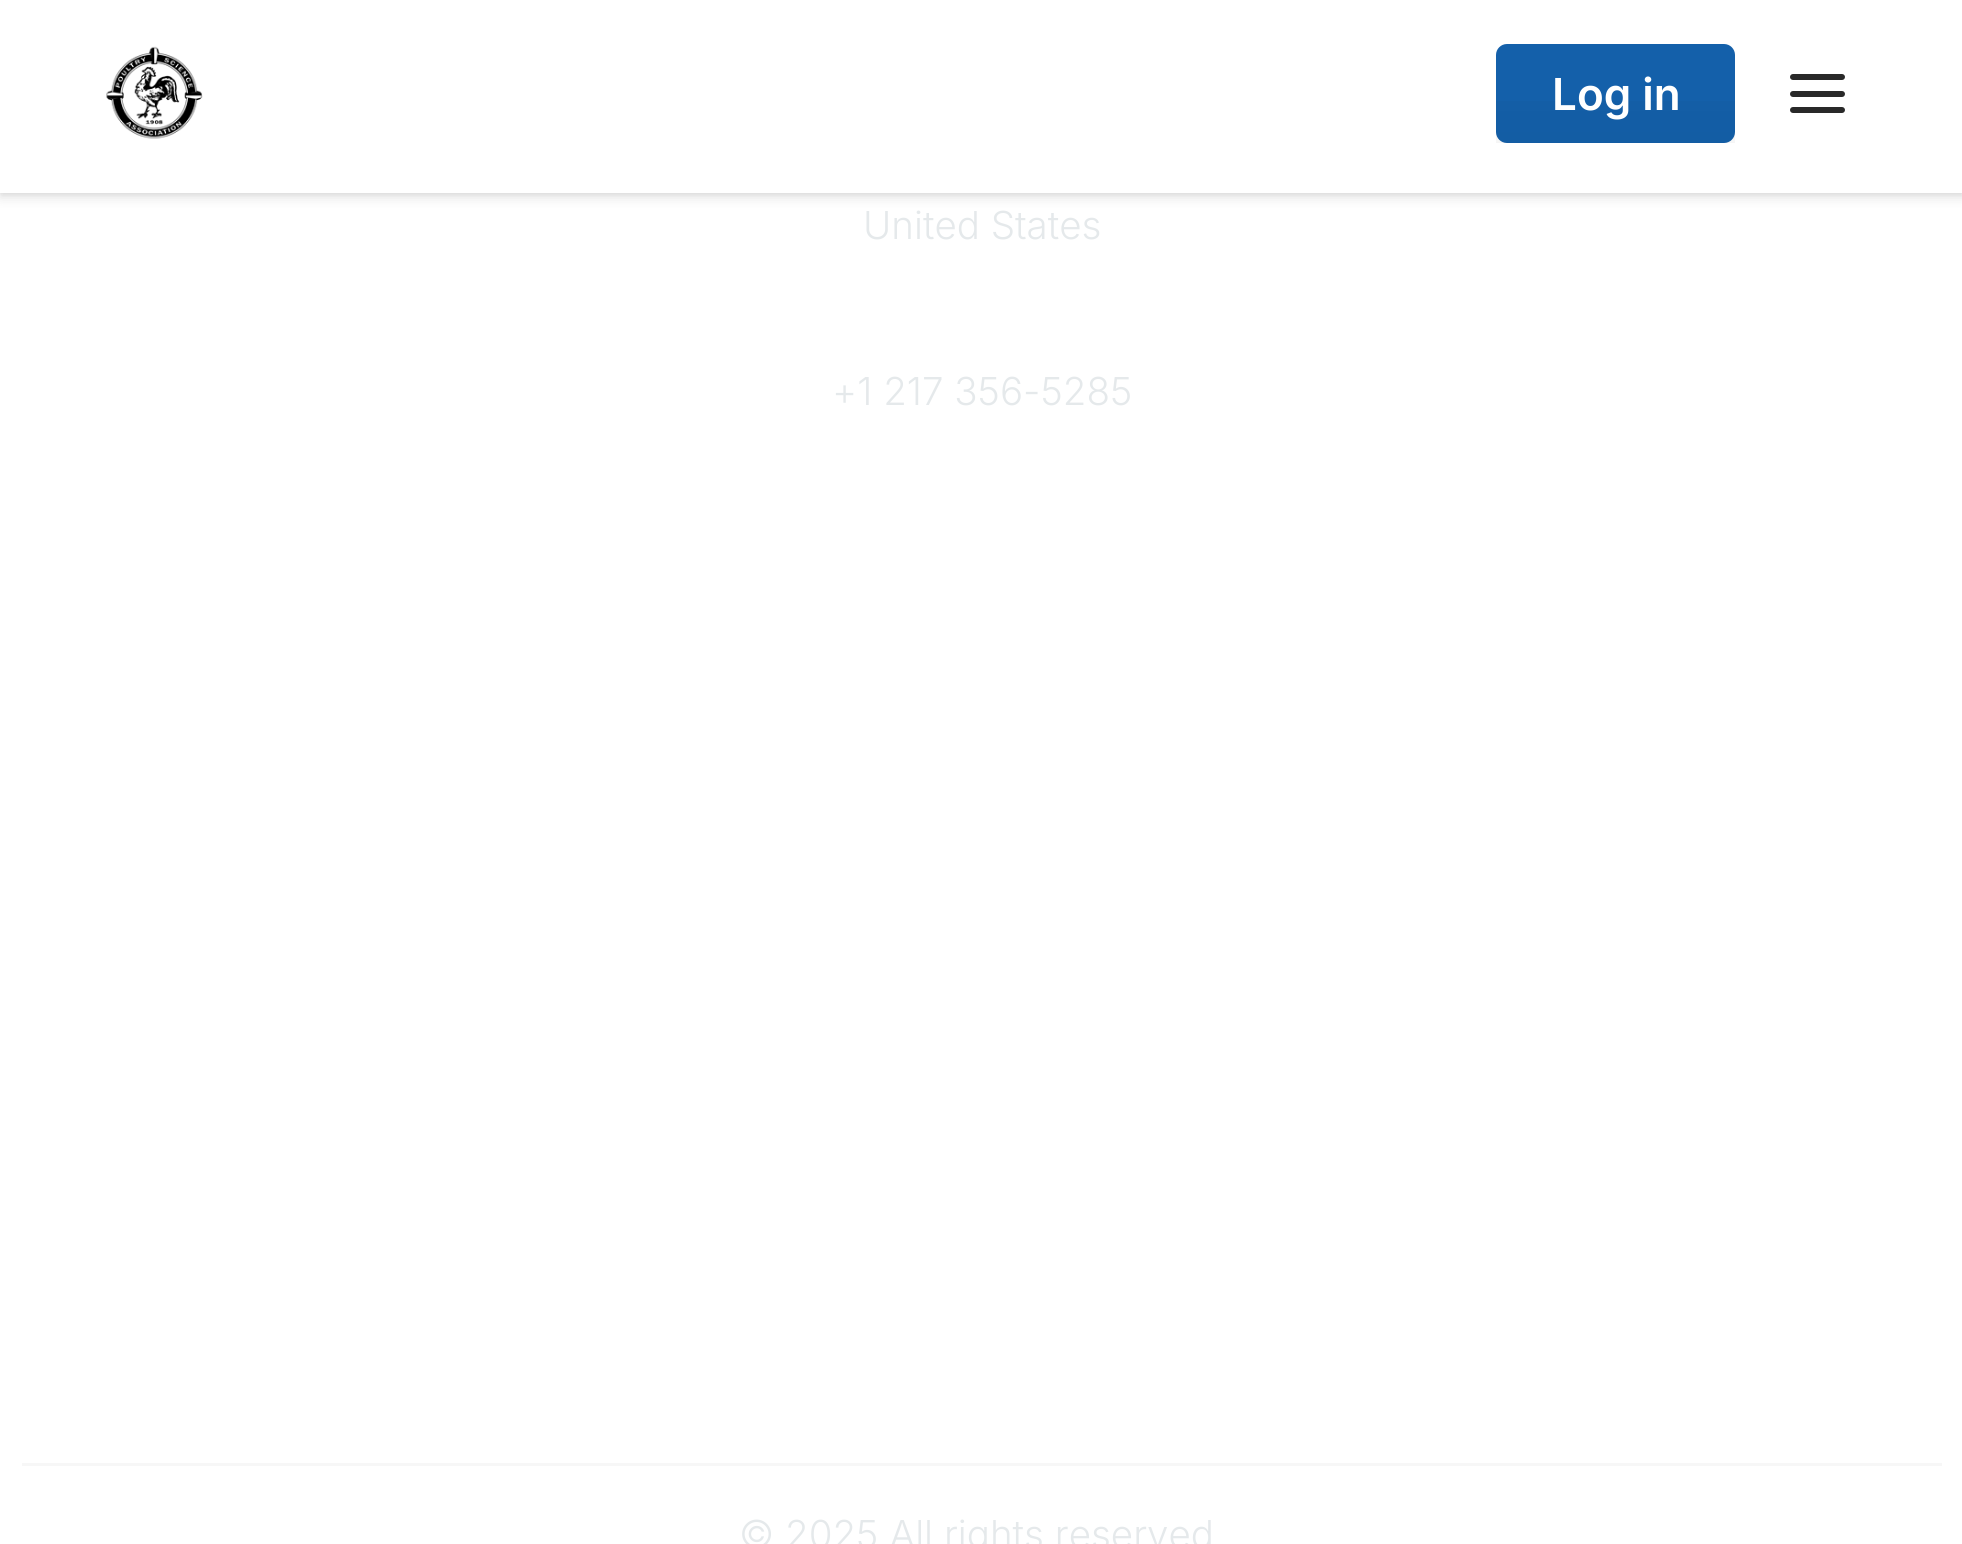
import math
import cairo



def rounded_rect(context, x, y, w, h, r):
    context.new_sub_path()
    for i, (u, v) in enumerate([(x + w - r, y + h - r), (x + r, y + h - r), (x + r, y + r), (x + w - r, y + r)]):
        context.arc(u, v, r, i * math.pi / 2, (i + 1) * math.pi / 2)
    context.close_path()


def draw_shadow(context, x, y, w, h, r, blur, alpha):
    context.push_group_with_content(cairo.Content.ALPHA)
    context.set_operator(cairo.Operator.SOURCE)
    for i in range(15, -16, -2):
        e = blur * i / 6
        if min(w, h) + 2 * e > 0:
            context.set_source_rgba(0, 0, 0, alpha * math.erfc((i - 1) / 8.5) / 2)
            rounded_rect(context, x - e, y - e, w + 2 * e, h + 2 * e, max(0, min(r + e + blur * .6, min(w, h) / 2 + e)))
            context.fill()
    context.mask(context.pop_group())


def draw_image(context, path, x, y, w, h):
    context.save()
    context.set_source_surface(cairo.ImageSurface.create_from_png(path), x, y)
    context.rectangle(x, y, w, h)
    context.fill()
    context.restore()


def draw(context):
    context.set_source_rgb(1, 1, 1)
    context.paint()
    context.set_source_rgb(153 / 255, 153 / 255, 153 / 255)
    draw_shadow(context, 0, 0, 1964, 193, 0, 3, 0.25)
    context.set_source_rgb(0, 0, 0)
    draw_shadow(context, 0, 6, 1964, 192, 0, 5.5, 0.1)
    context.set_source_rgb(1, 1, 1)
    context.rectangle(0, 0, 1962, 193)
    context.fill()
    draw_image(context, "images/1.png", 106, 46, 97, 93)
    context.set_source_rgb(20 / 255, 96 / 255, 170 / 255)
    rounded_rect(context, 1496, 44, 239, 99, 11)
    context.fill()
    gradient = cairo.LinearGradient(1616, 44, 1616, 836)
    gradient.add_color_stop_rgba(0, 0, 0, 0, 0)
    gradient.add_color_stop_rgba(1, 0, 0, 0, 0.3)
    context.set_source(gradient)
    context.rectangle(1496, 101, 239, 42)
    context.fill()
    context.set_source_rgb(41 / 255, 41 / 255, 41 / 255)
    rounded_rect(context, 1790, 74, 55, 6, 3)
    context.fill()
    rounded_rect(context, 1790, 91, 55, 6, 3)
    context.fill()
    rounded_rect(context, 1790, 107, 55, 6, 3)
    context.fill()
    context.set_source_rgb(247 / 255, 247 / 255, 247 / 255)
    context.rectangle(22, 1463, 1920, 3)
    context.fill()
    context.select_font_face("Inter SemiBold")
    context.set_font_size(44)
    context.set_source_rgb(1, 1, 1)
    context.move_to(1552, 110)
    context.show_text("Log in")
    context.select_font_face("Inter Light")
    context.set_font_size(38.5)
    context.set_source_rgb(229 / 255, 233 / 255, 235 / 255)
    context.move_to(863, 239)
    context.show_text("United States")
    context.move_to(832, 405)
    context.show_text("+1 217 356-5285")
    context.move_to(739, 1548)
    context.show_text("© 2025 All rights reserved")


surface = cairo.ImageSurface(cairo.Format.RGB24, 1962, 1544)
context = cairo.Context(surface)
options = cairo.FontOptions()
options.set_hint_metrics(cairo.HintMetrics.OFF)
options.set_hint_style(cairo.HintStyle.NONE)
context.set_font_options(options)
context.set_miter_limit(4)
draw(context)
surface.write_to_png("out.png")
